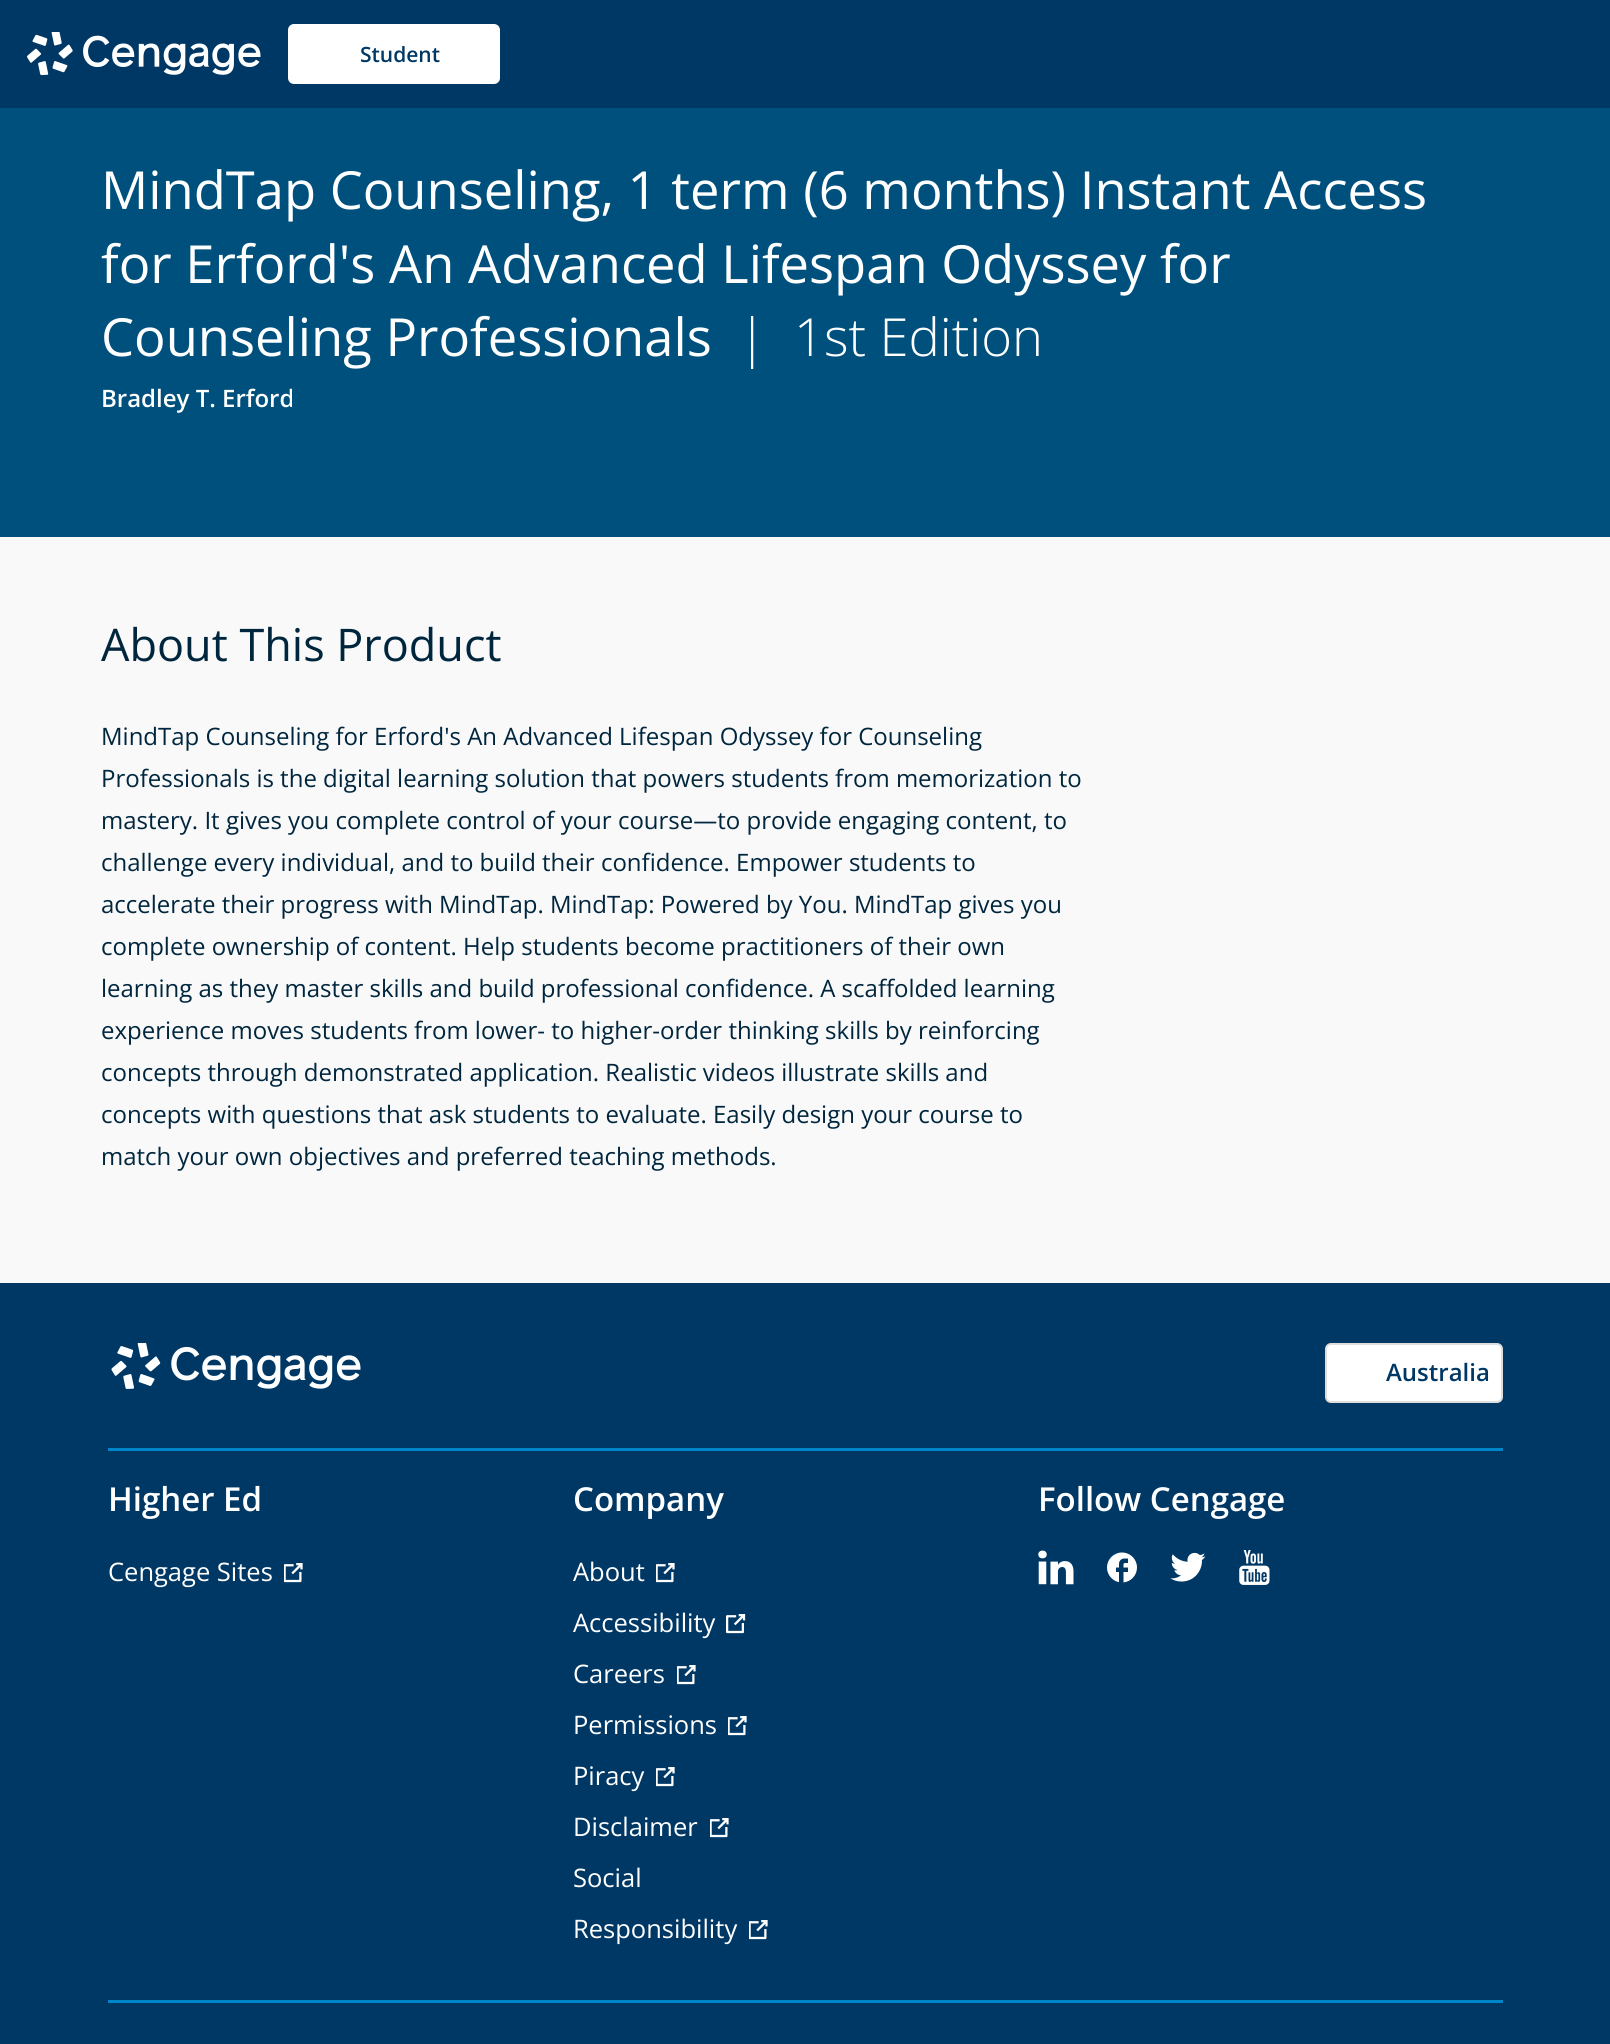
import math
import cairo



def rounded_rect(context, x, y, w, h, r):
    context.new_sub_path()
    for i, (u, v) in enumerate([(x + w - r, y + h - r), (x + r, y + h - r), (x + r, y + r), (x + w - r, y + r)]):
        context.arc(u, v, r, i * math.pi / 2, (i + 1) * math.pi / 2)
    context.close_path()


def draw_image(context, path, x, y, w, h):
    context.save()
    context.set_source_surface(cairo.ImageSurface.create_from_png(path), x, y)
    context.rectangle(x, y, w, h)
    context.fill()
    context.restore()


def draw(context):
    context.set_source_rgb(0, 80 / 255, 126 / 255)
    context.paint()
    context.set_source_rgb(0, 56 / 255, 101 / 255)
    context.rectangle(0, 0, 1610, 108)
    context.fill()
    draw_image(context, "images/1.png", 27, 32, 234, 44)
    context.set_source_rgb(1, 1, 1)
    rounded_rect(context, 288, 24, 212, 60, 6)
    context.fill()
    context.set_source_rgb(249 / 255, 249 / 255, 249 / 255)
    context.rectangle(0, 537, 1610, 746)
    context.fill()
    context.set_source_rgb(0, 56 / 255, 101 / 255)
    context.rectangle(0, 1283, 1610, 761)
    context.fill()
    context.set_source_rgb(0, 133 / 255, 202 / 255)
    context.rectangle(108, 1448, 1395, 3)
    context.fill()
    draw_image(context, "images/2.png", 111, 1343, 250, 46)
    context.set_source_rgb(1, 1, 1)
    rounded_rect(context, 1326, 1344, 176, 58, 5)
    context.fill_preserve()
    context.set_source_rgb(222 / 255, 222 / 255, 222 / 255)
    context.stroke()
    draw_image(context, "images/3.png", 284, 1563, 19, 20)
    draw_image(context, "images/3.png", 656, 1563, 19, 20)
    draw_image(context, "images/4.png", 726, 1614, 20, 20)
    draw_image(context, "images/3.png", 677, 1665, 19, 20)
    draw_image(context, "images/3.png", 728, 1716, 19, 20)
    draw_image(context, "images/3.png", 656, 1767, 19, 20)
    draw_image(context, "images/3.png", 710, 1818, 19, 20)
    draw_image(context, "images/3.png", 749, 1920, 19, 20)
    draw_image(context, "images/5.png", 1038, 1550, 36, 35)
    draw_image(context, "images/6.png", 1107, 1552, 30, 31)
    draw_image(context, "images/7.png", 1170, 1552, 36, 30)
    draw_image(context, "images/8.png", 1239, 1550, 31, 35)
    context.set_source_rgb(0, 133 / 255, 202 / 255)
    context.rectangle(108, 2000, 1395, 3)
    context.fill()
    context.select_font_face("Open Sans SemiBold")
    context.set_font_size(21)
    context.set_source_rgb(0, 56 / 255, 101 / 255)
    context.move_to(360, 62)
    context.show_text("Student")
    context.select_font_face("Open Sans")
    context.set_font_size(52.5)
    context.set_source_rgb(1, 1, 1)
    context.move_to(101, 209)
    context.show_text("MindTap Counseling, 1 term (6 months) Instant Access")
    context.move_to(101, 283)
    context.show_text("for Erford's An Advanced Lifespan Odyssey for")
    context.move_to(101, 356)
    context.show_text("Counseling Professionals")
    context.select_font_face("Open Sans Light")
    context.move_to(738, 356)
    context.show_text("|")
    context.move_to(794, 356)
    context.show_text("1st Edition")
    context.select_font_face("Open Sans SemiBold")
    context.set_font_size(24)
    context.move_to(101, 407)
    context.show_text("Bradley T. Erford")
    context.select_font_face("Open Sans")
    context.set_font_size(45)
    context.set_source_rgb(0, 38 / 255, 62 / 255)
    context.move_to(101, 661)
    context.show_text("About This Product")
    context.set_font_size(24)
    context.move_to(101, 745)
    context.show_text("MindTap Counseling for Erford's An Advanced Lifespan Odyssey for Counseling")
    context.move_to(101, 787)
    context.show_text("Professionals is the digital learning solution that powers students from memorization to")
    context.move_to(101, 829)
    context.show_text("mastery. It gives you complete control of your course—to provide engaging content, to")
    context.move_to(101, 871)
    context.show_text("challenge every individual, and to build their confidence. Empower students to")
    context.move_to(101, 913)
    context.show_text("accelerate their progress with MindTap. MindTap: Powered by You. MindTap gives you")
    context.move_to(101, 955)
    context.show_text("complete ownership of content. Help students become practitioners of their own")
    context.move_to(101, 997)
    context.show_text("learning as they master skills and build professional confidence. A scaffolded learning")
    context.move_to(101, 1039)
    context.show_text("experience moves students from lower- to higher-order thinking skills by reinforcing")
    context.move_to(101, 1081)
    context.show_text("concepts through demonstrated application. Realistic videos illustrate skills and")
    context.move_to(101, 1123)
    context.show_text("concepts with questions that ask students to evaluate. Easily design your course to")
    context.move_to(101, 1165)
    context.show_text("match your own objectives and preferred teaching methods.")
    context.select_font_face("Open Sans SemiBold")
    context.set_source_rgb(0, 56 / 255, 101 / 255)
    context.move_to(1386, 1381)
    context.show_text("Australia")
    context.set_font_size(33)
    context.set_source_rgb(1, 1, 1)
    context.move_to(108, 1511)
    context.show_text("Higher Ed")
    context.select_font_face("Open Sans")
    context.set_font_size(25.5)
    context.move_to(108, 1581)
    context.show_text("Cengage Sites")
    context.select_font_face("Open Sans SemiBold")
    context.set_font_size(33)
    context.move_to(573, 1511)
    context.show_text("Company")
    context.select_font_face("Open Sans")
    context.set_font_size(25.5)
    context.move_to(573, 1581)
    context.show_text("About")
    context.move_to(573, 1632)
    context.show_text("Accessibility")
    context.move_to(573, 1683)
    context.show_text("Careers")
    context.move_to(573, 1734)
    context.show_text("Permissions")
    context.move_to(573, 1785)
    context.show_text("Piracy")
    context.move_to(573, 1836)
    context.show_text("Disclaimer")
    context.move_to(573, 1887)
    context.show_text("Social")
    context.move_to(573, 1938)
    context.show_text("Responsibility")
    context.select_font_face("Open Sans SemiBold")
    context.set_font_size(33)
    context.move_to(1038, 1511)
    context.show_text("Follow Cengage")


surface = cairo.ImageSurface(cairo.Format.RGB24, 1610, 2044)
context = cairo.Context(surface)
options = cairo.FontOptions()
options.set_hint_metrics(cairo.HintMetrics.OFF)
options.set_hint_style(cairo.HintStyle.NONE)
context.set_font_options(options)
context.set_miter_limit(4)
draw(context)
surface.write_to_png("out.png")
